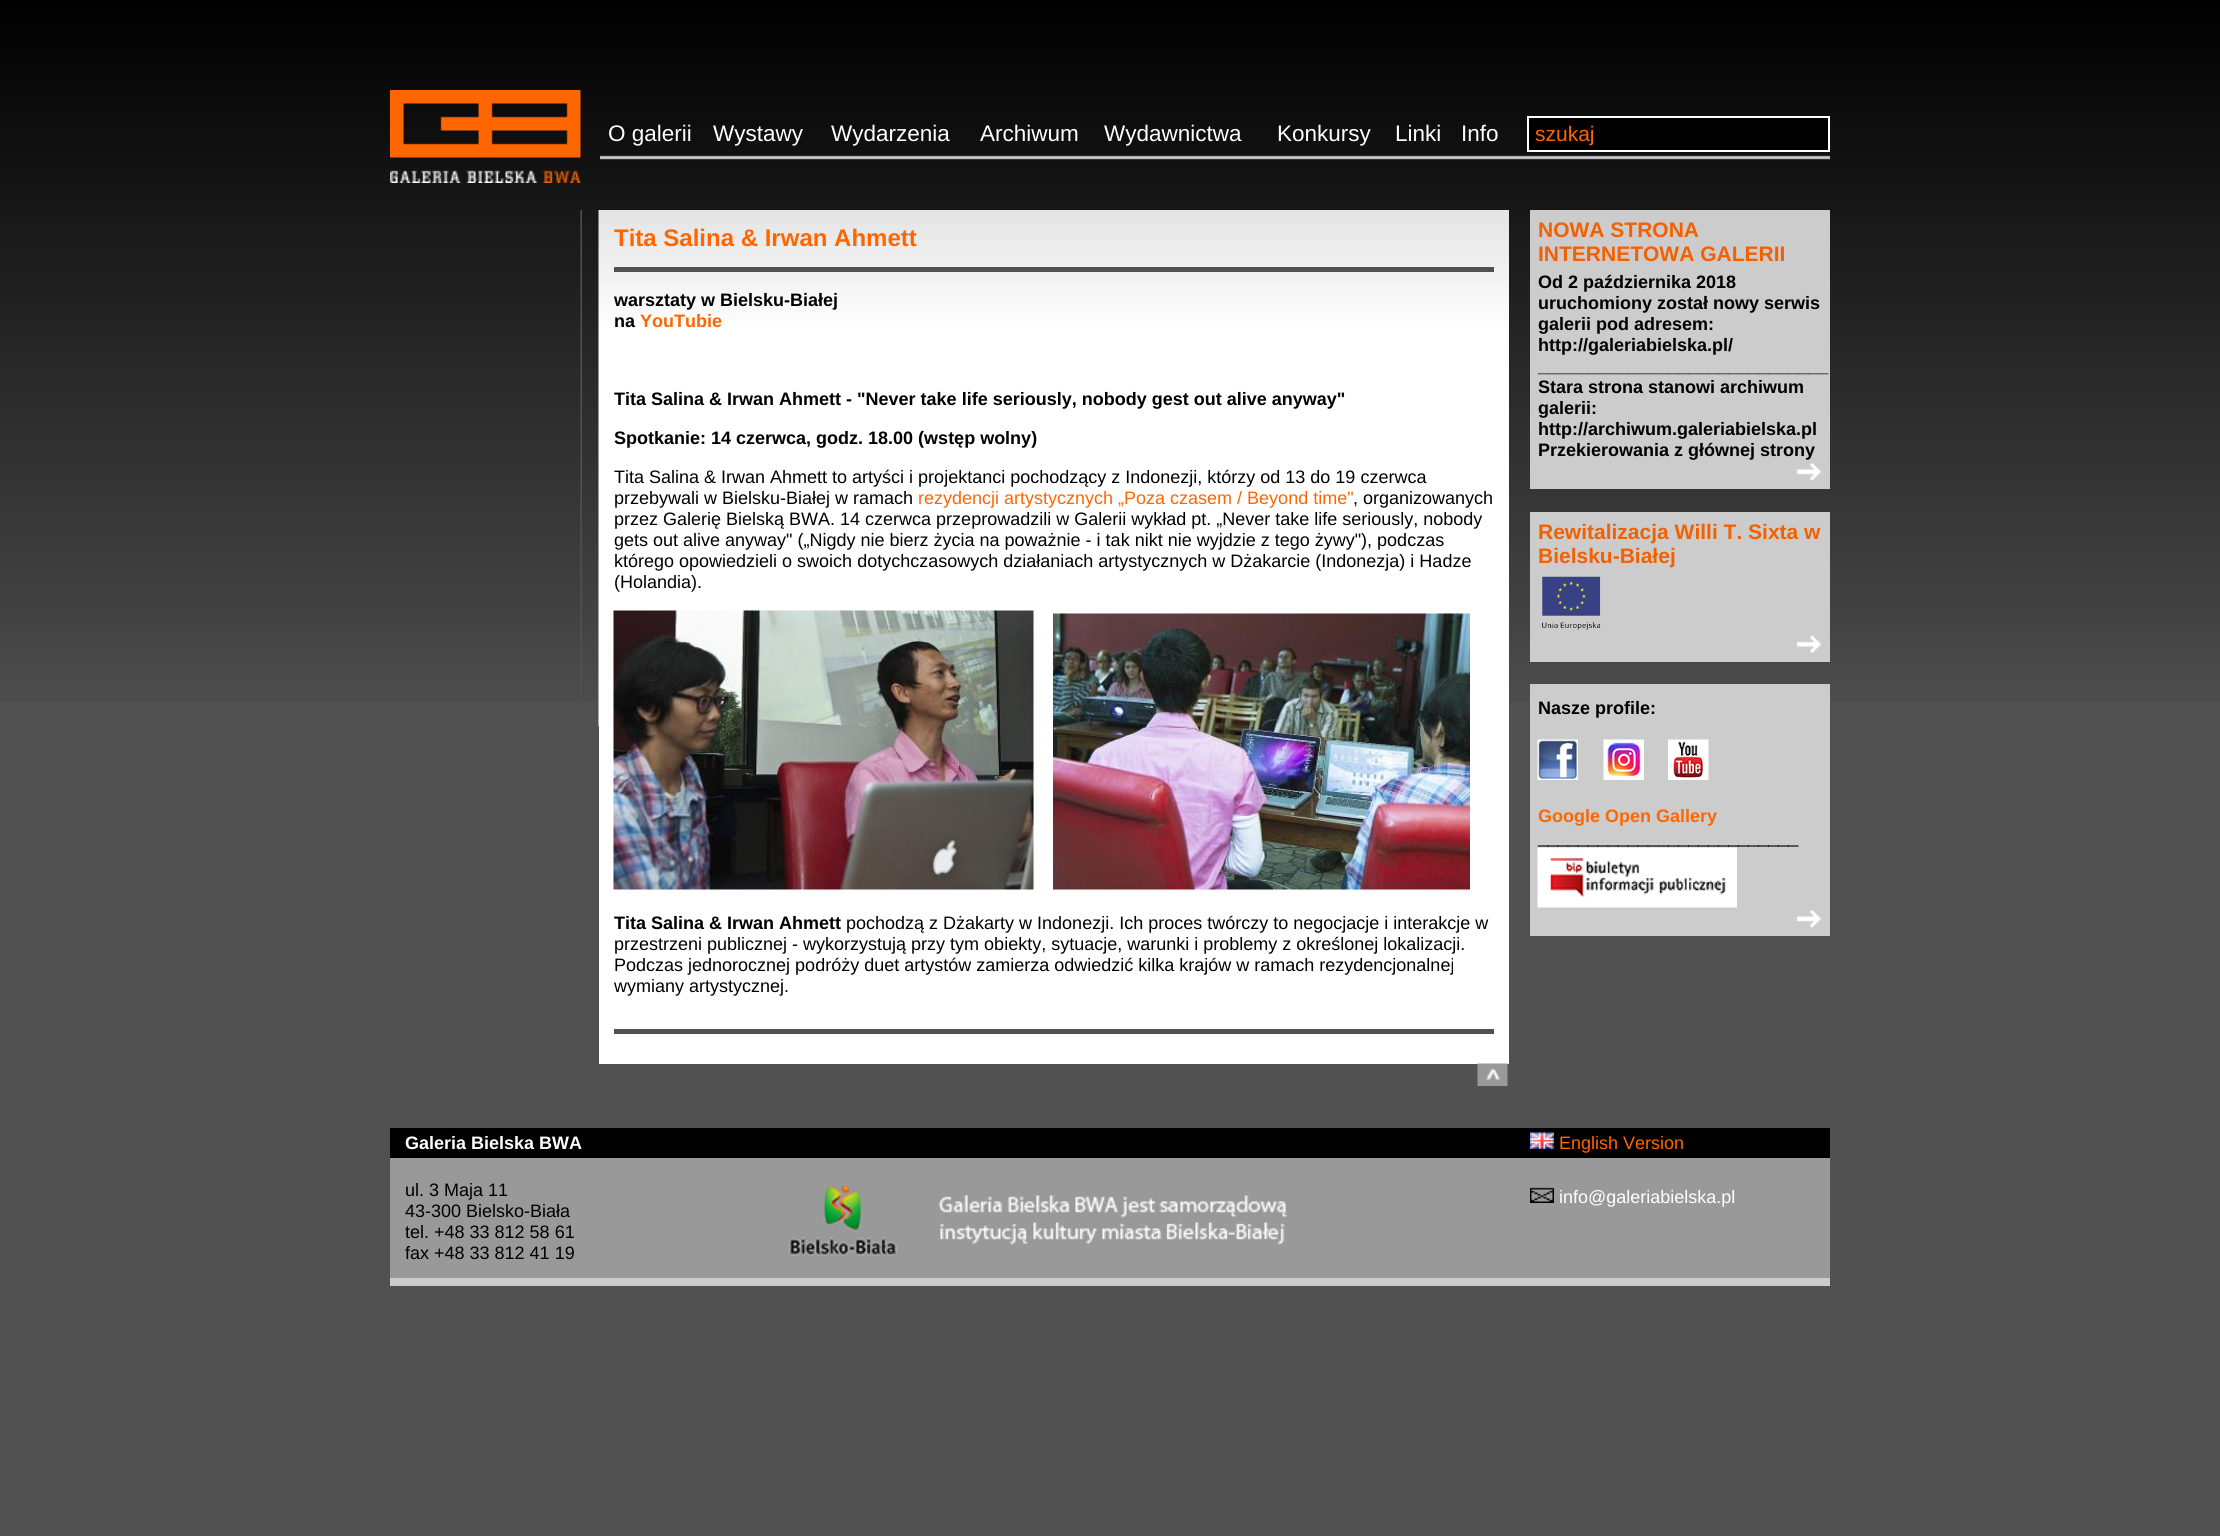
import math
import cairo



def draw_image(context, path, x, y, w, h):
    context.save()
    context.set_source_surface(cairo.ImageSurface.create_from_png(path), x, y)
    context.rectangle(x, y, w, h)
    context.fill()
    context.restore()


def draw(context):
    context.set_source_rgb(81 / 255, 81 / 255, 81 / 255)
    context.paint()
    draw_image(context, "images/1.png", 0, 0, 2220, 702)
    draw_image(context, "images/2.png", 390, 90, 191, 93)
    draw_image(context, "images/3.png", 600, 155, 1230, 5)
    context.set_source_rgb(0, 0, 0)
    context.rectangle(1528, 117, 301, 34)
    context.fill_preserve()
    context.set_source_rgb(1, 1, 1)
    context.stroke()
    draw_image(context, "images/4.png", 580, 210, 2, 492)
    context.rectangle(599, 726, 910, 338)
    context.fill()
    draw_image(context, "images/5.png", 598, 210, 911, 516)
    context.set_source_rgb(81 / 255, 81 / 255, 81 / 255)
    context.rectangle(614, 267, 880, 5)
    context.fill()
    draw_image(context, "images/6.png", 613, 610, 421, 280)
    draw_image(context, "images/7.png", 1053, 613, 417, 277)
    context.rectangle(614, 1029, 880, 5)
    context.fill()
    draw_image(context, "images/8.png", 1477, 1063, 31, 23)
    context.set_source_rgb(204 / 255, 204 / 255, 204 / 255)
    context.rectangle(1530, 210, 300, 279)
    context.fill()
    draw_image(context, "images/9.png", 1796, 463, 26, 18)
    context.rectangle(1530, 512, 300, 150)
    context.fill()
    draw_image(context, "images/10.png", 1542, 576, 59, 54)
    draw_image(context, "images/11.png", 1796, 635, 26, 18)
    context.rectangle(1530, 684, 300, 252)
    context.fill()
    draw_image(context, "images/12.png", 1537, 739, 41, 41)
    draw_image(context, "images/13.png", 1603, 739, 41, 41)
    draw_image(context, "images/14.png", 1668, 739, 41, 41)
    draw_image(context, "images/15.png", 1537, 847, 200, 61)
    draw_image(context, "images/9.png", 1796, 910, 26, 18)
    context.set_source_rgb(153 / 255, 153 / 255, 153 / 255)
    context.rectangle(390, 1158, 1440, 120)
    context.fill()
    context.set_source_rgb(204 / 255, 204 / 255, 204 / 255)
    context.rectangle(390, 1278, 1440, 8)
    context.fill()
    context.set_source_rgb(0, 0, 0)
    context.rectangle(390, 1128, 1440, 30)
    context.fill()
    draw_image(context, "images/16.png", 1530, 1132, 24, 17)
    draw_image(context, "images/17.png", 789, 1183, 499, 73)
    draw_image(context, "images/18.png", 1530, 1187, 24, 16)
    context.select_font_face("Liberation Sans")
    context.set_font_size(22.5)
    context.set_source_rgb(1, 1, 1)
    context.move_to(608, 141)
    context.show_text("O galerii")
    context.move_to(713, 141)
    context.show_text("Wystawy")
    context.move_to(831, 141)
    context.show_text("Wydarzenia")
    context.move_to(980, 141)
    context.show_text("Archiwum")
    context.move_to(1104, 141)
    context.show_text("Wydawnictwa")
    context.move_to(1277, 141)
    context.show_text("Konkursy")
    context.move_to(1395, 141)
    context.show_text("Linki")
    context.move_to(1461, 141)
    context.show_text("Info")
    context.set_font_size(21)
    context.set_source_rgb(1, 102 / 255, 0)
    context.move_to(1535, 141)
    context.show_text("szukaj")
    context.select_font_face("Liberation Sans", cairo.FontSlant.NORMAL, cairo.FontWeight.BOLD)
    context.set_font_size(24)
    context.move_to(614, 246)
    context.show_text("Tita Salina & Irwan Ahmett")
    context.set_font_size(18)
    context.set_source_rgb(0, 0, 0)
    context.move_to(614, 306)
    context.show_text("warsztaty w Bielsku-Białej")
    context.move_to(614, 327)
    context.show_text("na")
    context.set_source_rgb(1, 102 / 255, 0)
    context.move_to(640, 327)
    context.show_text("YouTubie")
    context.set_source_rgb(0, 0, 0)
    context.move_to(614, 405)
    context.show_text("Tita Salina & Irwan Ahmett - \"Never take life seriously, nobody gest out alive anyway\"")
    context.move_to(614, 444)
    context.show_text("Spotkanie: 14 czerwca, godz. 18.00 (wstęp wolny)")
    context.select_font_face("Liberation Sans")
    context.move_to(614, 483)
    context.show_text("Tita Salina & Irwan Ahmett to artyści i projektanci pochodzący z Indonezji, którzy od 13 do 19 czerwca")
    context.move_to(614, 504)
    context.show_text("przebywali w Bielsku-Białej w ramach")
    context.set_source_rgb(1, 102 / 255, 0)
    context.move_to(918, 504)
    context.show_text("rezydencji artystycznych „Poza czasem / Beyond time\"")
    context.set_source_rgb(0, 0, 0)
    context.move_to(1353, 504)
    context.show_text(", organizowanych")
    context.move_to(614, 525)
    context.show_text("przez Galerię Bielską BWA. 14 czerwca przeprowadzili w Galerii wykład pt. „Never take life seriously, nobody")
    context.move_to(614, 546)
    context.show_text("gets out alive anyway\" („Nigdy nie bierz życia na poważnie - i tak nikt nie wyjdzie z tego żywy\"), podczas")
    context.move_to(614, 567)
    context.show_text("którego opowiedzieli o swoich dotychczasowych działaniach artystycznych w Dżakarcie (Indonezja) i Hadze")
    context.move_to(614, 588)
    context.show_text("(Holandia).")
    context.select_font_face("Liberation Sans", cairo.FontSlant.NORMAL, cairo.FontWeight.BOLD)
    context.move_to(614, 929)
    context.show_text("Tita Salina & Irwan Ahmett")
    context.select_font_face("Liberation Sans")
    context.move_to(846, 929)
    context.show_text("pochodzą z Dżakarty w Indonezji. Ich proces twórczy to negocjacje i interakcje w")
    context.move_to(614, 950)
    context.show_text("przestrzeni publicznej - wykorzystują przy tym obiekty, sytuacje, warunki i problemy z określonej lokalizacji.")
    context.move_to(614, 971)
    context.show_text("Podczas jednorocznej podróży duet artystów zamierza odwiedzić kilka krajów w ramach rezydencjonalnej")
    context.move_to(614, 992)
    context.show_text("wymiany artystycznej.")
    context.select_font_face("Liberation Sans", cairo.FontSlant.NORMAL, cairo.FontWeight.BOLD)
    context.set_font_size(21)
    context.set_source_rgb(242 / 255, 97 / 255, 0)
    context.move_to(1538, 237)
    context.show_text("NOWA STRONA")
    context.move_to(1538, 261)
    context.show_text("INTERNETOWA GALERII")
    context.set_font_size(18)
    context.set_source_rgb(0, 0, 0)
    context.move_to(1538, 288)
    context.show_text("Od 2 października 2018")
    context.move_to(1538, 309)
    context.show_text("uruchomiony został nowy serwis")
    context.move_to(1538, 330)
    context.show_text("galerii pod adresem:")
    context.move_to(1538, 351)
    context.show_text("http://galeriabielska.pl/")
    context.move_to(1538, 372)
    context.show_text("_____________________________")
    context.move_to(1538, 393)
    context.show_text("Stara strona stanowi archiwum")
    context.move_to(1538, 414)
    context.show_text("galerii:")
    context.move_to(1538, 435)
    context.show_text("http://archiwum.galeriabielska.pl")
    context.move_to(1538, 456)
    context.show_text("Przekierowania z głównej strony")
    context.set_font_size(21)
    context.set_source_rgb(242 / 255, 97 / 255, 0)
    context.move_to(1538, 539)
    context.show_text("Rewitalizacja Willi T. Sixta w")
    context.move_to(1538, 563)
    context.show_text("Bielsku-Białej")
    context.set_font_size(18)
    context.set_source_rgb(0, 0, 0)
    context.move_to(1538, 714)
    context.show_text("Nasze profile:")
    context.set_source_rgb(1, 102 / 255, 0)
    context.move_to(1538, 822)
    context.show_text("Google Open Gallery")
    context.select_font_face("Liberation Sans")
    context.set_source_rgb(0, 0, 0)
    context.move_to(1538, 843)
    context.show_text("__________________________")
    context.select_font_face("Liberation Sans", cairo.FontSlant.NORMAL, cairo.FontWeight.BOLD)
    context.set_source_rgb(1, 1, 1)
    context.move_to(405, 1149)
    context.show_text("Galeria Bielska BWA")
    context.select_font_face("Liberation Sans")
    context.set_source_rgb(0, 0, 0)
    context.move_to(405, 1196)
    context.show_text("ul. 3 Maja 11")
    context.move_to(405, 1217)
    context.show_text("43-300 Bielsko-Biała")
    context.move_to(405, 1238)
    context.show_text("tel. +48 33 812 58 61")
    context.move_to(405, 1259)
    context.show_text("fax +48 33 812 41 19")
    context.set_source_rgb(1, 102 / 255, 0)
    context.move_to(1559, 1149)
    context.show_text("English Version")
    context.set_source_rgb(1, 1, 1)
    context.move_to(1559, 1203)
    context.show_text("info@galeriabielska.pl")


surface = cairo.ImageSurface(cairo.Format.RGB24, 2220, 1536)
context = cairo.Context(surface)
options = cairo.FontOptions()
options.set_hint_metrics(cairo.HintMetrics.OFF)
options.set_hint_style(cairo.HintStyle.NONE)
context.set_font_options(options)
context.set_miter_limit(4)
draw(context)
surface.write_to_png("out.png")
